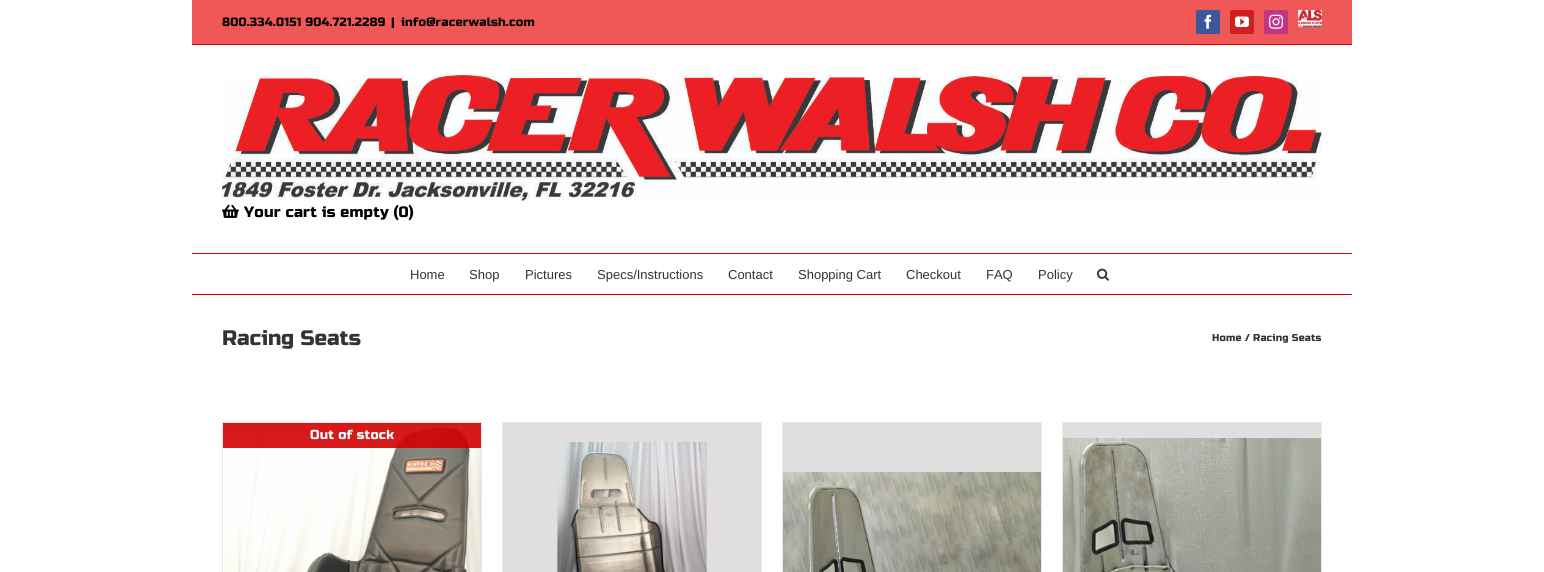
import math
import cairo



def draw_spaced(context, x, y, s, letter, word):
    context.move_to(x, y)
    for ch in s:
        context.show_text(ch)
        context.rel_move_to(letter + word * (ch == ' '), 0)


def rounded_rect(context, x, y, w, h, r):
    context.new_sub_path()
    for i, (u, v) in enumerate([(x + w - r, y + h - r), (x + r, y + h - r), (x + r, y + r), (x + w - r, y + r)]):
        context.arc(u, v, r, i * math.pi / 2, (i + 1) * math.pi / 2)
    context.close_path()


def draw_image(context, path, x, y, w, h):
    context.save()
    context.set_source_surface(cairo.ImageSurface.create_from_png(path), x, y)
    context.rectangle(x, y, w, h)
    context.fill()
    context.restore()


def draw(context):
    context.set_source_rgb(1, 1, 1)
    context.paint()
    context.set_source_rgb(240 / 255, 88 / 255, 88 / 255)
    context.rectangle(192, 0, 1160, 44)
    context.fill()
    context.set_source_rgb(229 / 255, 0, 0)
    context.rectangle(192, 44, 1160, 1)
    context.fill()
    context.set_source_rgb(59 / 255, 89 / 255, 152 / 255)
    rounded_rect(context, 1196.5, 10.5, 23, 23, 1.5)
    context.fill_preserve()
    context.set_line_width(1)
    context.stroke()
    draw_image(context, "images/1.png", 1204, 14, 8, 15)
    context.set_source_rgb(205 / 255, 32 / 255, 31 / 255)
    rounded_rect(context, 1230.5, 10.5, 23, 23, 1.5)
    context.fill_preserve()
    context.stroke()
    draw_image(context, "images/2.png", 1235, 16, 14, 11)
    context.set_source_rgb(193 / 255, 53 / 255, 132 / 255)
    rounded_rect(context, 1264.5, 10.5, 23, 23, 1.5)
    context.fill_preserve()
    context.stroke()
    draw_image(context, "images/3.png", 1269, 14, 14, 15)
    draw_image(context, "images/4.png", 1298, 10, 24, 17)
    context.set_source_rgb(229 / 255, 0, 0)
    context.rectangle(192, 253, 1160, 1)
    context.fill()
    draw_image(context, "images/5.png", 222, 75, 1100, 126)
    draw_image(context, "images/6.png", 222, 204, 17, 14)
    context.rectangle(192, 294, 1160, 1)
    context.fill()
    draw_image(context, "images/7.png", 1097, 268, 12, 13)
    context.set_source_rgb(235 / 255, 234 / 255, 234 / 255)
    context.rectangle(222, 422, 260, 1)
    context.fill()
    context.rectangle(481, 422, 1, 150)
    context.fill()
    context.rectangle(222, 422, 1, 150)
    context.fill()
    context.set_source_rgb(224 / 255, 222 / 255, 222 / 255)
    context.rectangle(223, 423, 258, 2)
    context.fill()
    draw_image(context, "images/8.png", 223, 425, 258, 147)
    context.set_source_rgba(210 / 255, 0, 0, 0.9)
    context.rectangle(223, 423, 258, 25)
    context.fill()
    context.set_source_rgb(235 / 255, 234 / 255, 234 / 255)
    context.rectangle(502, 422, 260, 1)
    context.fill()
    context.rectangle(761, 422, 1, 150)
    context.fill()
    context.rectangle(502, 422, 1, 150)
    context.fill()
    context.set_source_rgb(224 / 255, 222 / 255, 222 / 255)
    context.rectangle(503, 423, 258, 149)
    context.fill()
    draw_image(context, "images/9.png", 557, 442, 150, 130)
    context.set_source_rgb(235 / 255, 234 / 255, 234 / 255)
    context.rectangle(782, 422, 260, 1)
    context.fill()
    context.rectangle(1041, 422, 1, 150)
    context.fill()
    context.rectangle(782, 422, 1, 150)
    context.fill()
    context.set_source_rgb(224 / 255, 222 / 255, 222 / 255)
    context.rectangle(783, 423, 258, 49)
    context.fill()
    draw_image(context, "images/10.png", 783, 472, 258, 100)
    context.set_source_rgb(235 / 255, 234 / 255, 234 / 255)
    context.rectangle(1062, 422, 260, 1)
    context.fill()
    context.rectangle(1321, 422, 1, 150)
    context.fill()
    context.rectangle(1062, 422, 1, 150)
    context.fill()
    context.set_source_rgb(224 / 255, 222 / 255, 222 / 255)
    context.rectangle(1063, 423, 258, 15)
    context.fill()
    draw_image(context, "images/11.png", 1063, 438, 258, 134)
    context.select_font_face("Russo One")
    context.set_font_size(12)
    context.set_source_rgb(0, 0, 0)
    draw_spaced(context, 222, 26, "800.334.0151 904.721.2289", 0.2, 0)
    draw_spaced(context, 391, 26, "|", 0.2, 0)
    draw_spaced(context, 401, 26, "info@racerwalsh.com", 0.2, 0)
    context.set_font_size(15)
    draw_spaced(context, 244, 217, "Your cart is empty (0)", 0.2, 0)
    context.select_font_face("Liberation Sans")
    context.set_font_size(13)
    context.set_source_rgb(51 / 255, 51 / 255, 51 / 255)
    context.move_to(410, 279)
    context.show_text("Home")
    context.move_to(469, 279)
    context.show_text("Shop")
    context.move_to(525, 279)
    context.show_text("Pictures")
    context.move_to(597, 279)
    context.show_text("Specs/Instructions")
    context.move_to(728, 279)
    context.show_text("Contact")
    context.move_to(798, 279)
    context.show_text("Shopping Cart")
    context.move_to(906, 279)
    context.show_text("Checkout")
    context.move_to(986, 279)
    context.show_text("FAQ")
    context.move_to(1038, 279)
    context.show_text("Policy")
    context.select_font_face("Russo One")
    context.set_font_size(21)
    context.move_to(222, 345)
    context.show_text("Racing Seats")
    context.set_font_size(10)
    draw_spaced(context, 1212, 341, "Home", 0.2, 0)
    draw_spaced(context, 1245, 341, "/", 0.2, 0)
    draw_spaced(context, 1253, 341, "Racing Seats", 0.2, 0)
    context.set_font_size(13)
    context.set_source_rgb(1, 1, 1)
    draw_spaced(context, 310, 439, "Out of stock", 0.2, 0)


surface = cairo.ImageSurface(cairo.Format.RGB24, 1544, 572)
context = cairo.Context(surface)
options = cairo.FontOptions()
options.set_hint_metrics(cairo.HintMetrics.OFF)
options.set_hint_style(cairo.HintStyle.NONE)
context.set_font_options(options)
context.set_miter_limit(4)
draw(context)
surface.write_to_png("out.png")
